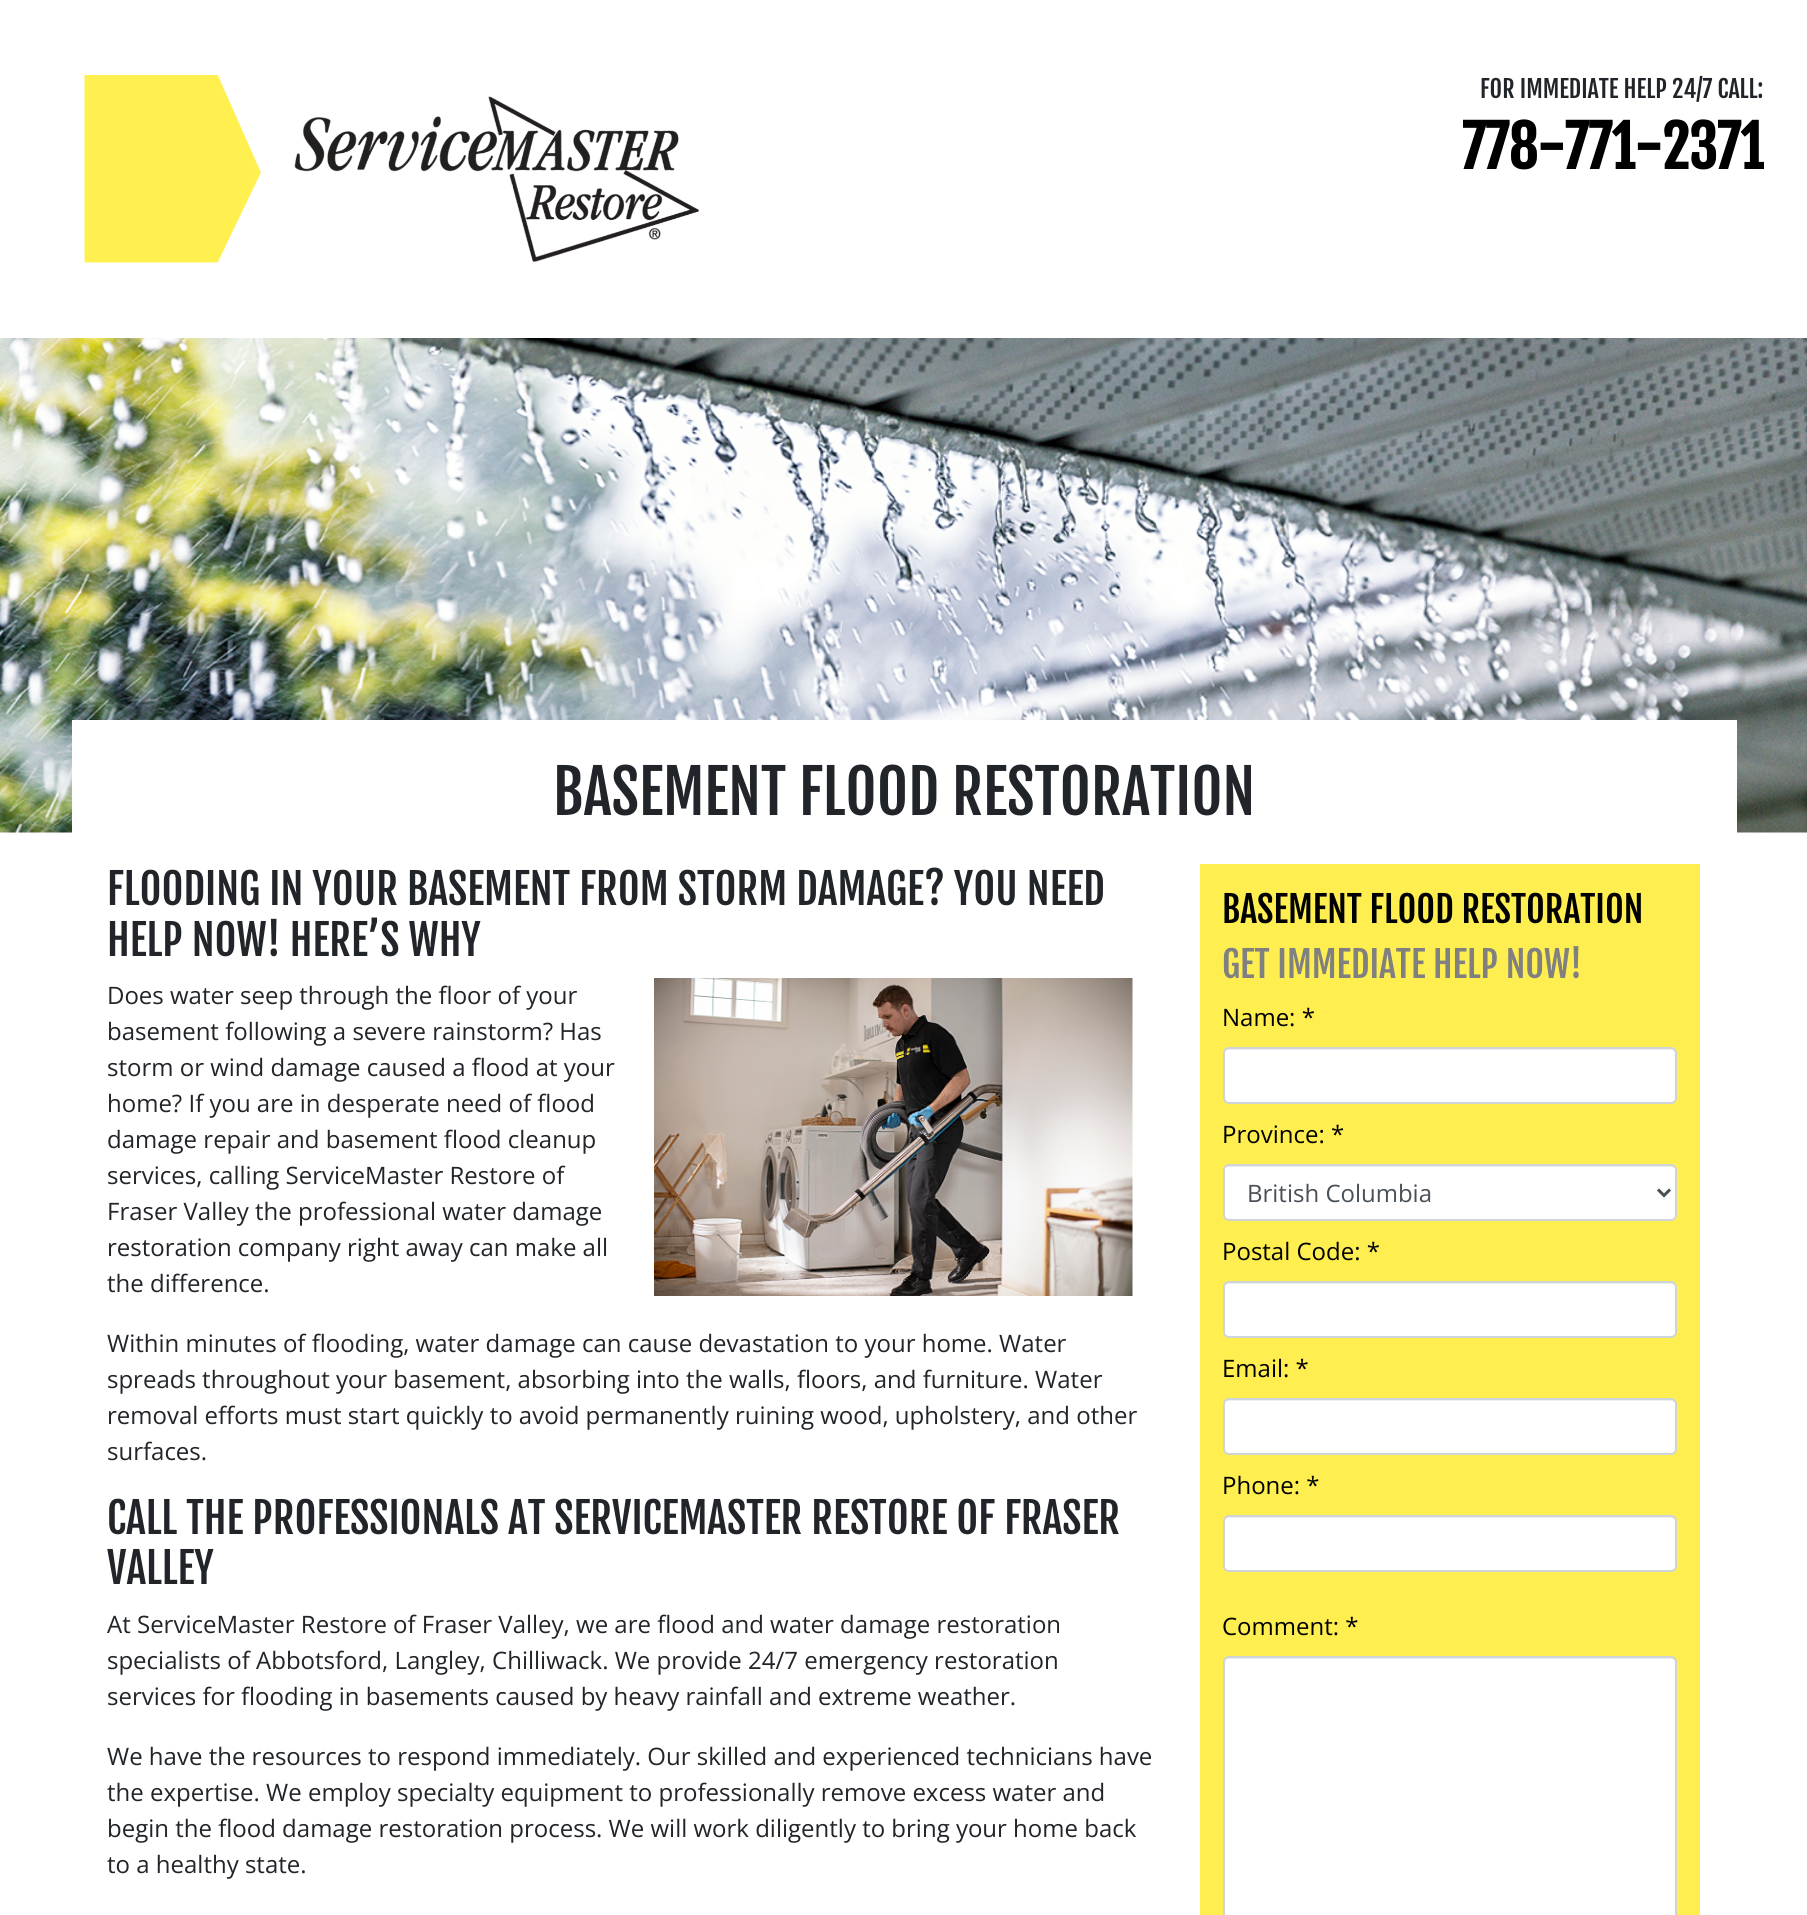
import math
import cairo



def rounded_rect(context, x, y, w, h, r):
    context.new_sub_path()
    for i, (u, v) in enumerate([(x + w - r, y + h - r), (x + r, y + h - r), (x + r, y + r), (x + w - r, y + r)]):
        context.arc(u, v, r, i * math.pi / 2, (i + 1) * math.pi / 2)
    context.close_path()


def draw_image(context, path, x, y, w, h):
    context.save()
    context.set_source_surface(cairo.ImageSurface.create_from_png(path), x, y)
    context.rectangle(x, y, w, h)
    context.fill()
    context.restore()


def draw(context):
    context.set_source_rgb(1, 1, 1)
    context.paint()
    draw_image(context, "images/1.png", 84, 75, 615, 188)
    draw_image(context, "images/2.png", 0, 338, 1807, 495)
    context.set_source_rgb(1, 1, 1)
    context.rectangle(72, 720, 1665, 113)
    context.fill()
    draw_image(context, "images/3.png", 654, 978, 479, 318)
    context.set_source_rgb(1, 238 / 255, 80 / 255)
    context.rectangle(1200, 864, 500, 1051)
    context.fill()
    context.set_source_rgb(1, 1, 1)
    rounded_rect(context, 1224, 1049, 452, 54, 5)
    context.fill()
    context.set_source_rgba(0, 0, 0, 0.07)
    context.new_path()
    context.move_to(1228, 1050)
    context.line_to(1671, 1050)
    context.curve_to(1673, 1050, 1676, 1052, 1676, 1054)
    context.curve_to(1676, 1051, 1674, 1049, 1671, 1049)
    context.line_to(1229, 1049)
    context.curve_to(1226, 1049, 1224, 1051, 1224, 1054)
    context.curve_to(1224, 1052, 1226, 1050, 1228, 1050)
    context.close_path()
    context.fill()
    rounded_rect(context, 1224, 1048, 452, 55, 5)
    context.set_source_rgb(206 / 255, 212 / 255, 218 / 255)
    context.stroke()
    context.set_source_rgb(1, 1, 1)
    rounded_rect(context, 1224, 1166, 452, 54, 5)
    context.fill()
    context.set_source_rgba(0, 0, 0, 0.07)
    context.new_path()
    context.move_to(1228, 1167)
    context.line_to(1671, 1167)
    context.curve_to(1673, 1167, 1676, 1169, 1676, 1172)
    context.curve_to(1676, 1169, 1674, 1166, 1671, 1166)
    context.line_to(1229, 1166)
    context.curve_to(1226, 1166, 1224, 1169, 1224, 1172)
    context.curve_to(1224, 1169, 1226, 1167, 1228, 1167)
    context.close_path()
    context.fill()
    rounded_rect(context, 1224, 1165, 452, 55, 5)
    context.set_source_rgb(206 / 255, 212 / 255, 218 / 255)
    context.stroke()
    context.new_path()
    context.move_to(1658, 1189.5)
    context.line_to(1664, 1195.5)
    context.line_to(1670, 1189.5)
    context.set_source_rgb(73 / 255, 80 / 255, 87 / 255)
    context.set_line_width(3)
    context.stroke()
    context.set_source_rgb(1, 1, 1)
    rounded_rect(context, 1224, 1283, 452, 54, 5)
    context.fill()
    context.set_source_rgba(0, 0, 0, 0.07)
    context.new_path()
    context.move_to(1228, 1284)
    context.line_to(1671, 1284)
    context.curve_to(1673, 1284, 1676, 1286, 1676, 1288)
    context.curve_to(1676, 1285, 1674, 1283, 1671, 1283)
    context.line_to(1229, 1283)
    context.curve_to(1226, 1283, 1224, 1285, 1224, 1288)
    context.curve_to(1224, 1286, 1226, 1284, 1228, 1284)
    context.close_path()
    context.fill()
    rounded_rect(context, 1224, 1282, 452, 55, 5)
    context.set_source_rgb(206 / 255, 212 / 255, 218 / 255)
    context.set_line_width(2)
    context.stroke()
    context.set_source_rgb(1, 1, 1)
    rounded_rect(context, 1224, 1400, 452, 54, 5)
    context.fill()
    context.set_source_rgba(0, 0, 0, 0.07)
    context.new_path()
    context.move_to(1228, 1401)
    context.line_to(1671, 1401)
    context.curve_to(1673, 1401, 1676, 1403, 1676, 1406)
    context.curve_to(1676, 1403, 1674, 1400, 1671, 1400)
    context.line_to(1229, 1400)
    context.curve_to(1226, 1400, 1224, 1403, 1224, 1406)
    context.curve_to(1224, 1403, 1226, 1401, 1228, 1401)
    context.close_path()
    context.fill()
    rounded_rect(context, 1224, 1399, 452, 55, 5)
    context.set_source_rgb(206 / 255, 212 / 255, 218 / 255)
    context.stroke()
    context.set_source_rgb(1, 1, 1)
    rounded_rect(context, 1224, 1517, 452, 54, 5)
    context.fill()
    context.set_source_rgba(0, 0, 0, 0.07)
    context.new_path()
    context.move_to(1228, 1518)
    context.line_to(1671, 1518)
    context.curve_to(1673, 1518, 1676, 1520, 1676, 1522)
    context.curve_to(1676, 1519, 1674, 1517, 1671, 1517)
    context.line_to(1229, 1517)
    context.curve_to(1226, 1517, 1224, 1519, 1224, 1522)
    context.curve_to(1224, 1520, 1226, 1518, 1228, 1518)
    context.close_path()
    context.fill()
    rounded_rect(context, 1224, 1516, 452, 55, 5)
    context.set_source_rgb(206 / 255, 212 / 255, 218 / 255)
    context.stroke()
    context.set_source_rgb(1, 1, 1)
    rounded_rect(context, 1224, 1658, 452, 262, 5)
    context.fill()
    context.set_source_rgba(0, 0, 0, 0.07)
    context.new_path()
    context.move_to(1228, 1659)
    context.line_to(1671, 1659)
    context.curve_to(1673, 1659, 1676, 1661, 1676, 1664)
    context.curve_to(1676, 1661, 1674, 1658, 1671, 1658)
    context.line_to(1229, 1658)
    context.curve_to(1226, 1658, 1224, 1661, 1224, 1664)
    context.curve_to(1224, 1661, 1226, 1659, 1228, 1659)
    context.close_path()
    context.fill()
    rounded_rect(context, 1224, 1657, 452, 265, 5)
    context.set_source_rgb(206 / 255, 212 / 255, 218 / 255)
    context.stroke()
    context.select_font_face("Fjalla One")
    context.set_font_size(24)
    context.set_source_rgb(33 / 255, 37 / 255, 41 / 255)
    context.move_to(1480, 98)
    context.show_text("FOR IMMEDIATE HELP 24/7 CALL:")
    context.select_font_face("Fjalla One", cairo.FontSlant.NORMAL, cairo.FontWeight.BOLD)
    context.set_font_size(57)
    context.set_source_rgb(0, 0, 0)
    context.move_to(1462, 169)
    context.show_text("778-771-2371")
    context.select_font_face("Fjalla One")
    context.set_font_size(60)
    context.set_source_rgb(33 / 255, 37 / 255, 41 / 255)
    context.move_to(553, 815)
    context.show_text("BASEMENT FLOOD RESTORATION")
    context.set_font_size(42)
    context.move_to(107, 905)
    context.show_text("FLOODING IN YOUR BASEMENT FROM STORM DAMAGE? YOU NEED")
    context.move_to(107, 956)
    context.show_text("HELP NOW! HERE’S WHY")
    context.select_font_face("Open Sans")
    context.set_font_size(24)
    context.move_to(107, 1004)
    context.show_text("Does water seep through the floor of your")
    context.move_to(107, 1040)
    context.show_text("basement following a severe rainstorm? Has")
    context.move_to(107, 1076)
    context.show_text("storm or wind damage caused a flood at your")
    context.move_to(107, 1112)
    context.show_text("home? If you are in desperate need of flood")
    context.move_to(107, 1148)
    context.show_text("damage repair and basement flood cleanup")
    context.move_to(107, 1184)
    context.show_text("services, calling ServiceMaster Restore of")
    context.move_to(107, 1220)
    context.show_text("Fraser Valley the professional water damage")
    context.move_to(107, 1256)
    context.show_text("restoration company right away can make all")
    context.move_to(107, 1292)
    context.show_text("the difference.")
    context.move_to(107, 1352)
    context.show_text("Within minutes of flooding, water damage can cause devastation to your home. Water")
    context.move_to(107, 1388)
    context.show_text("spreads throughout your basement, absorbing into the walls, floors, and furniture. Water")
    context.move_to(107, 1424)
    context.show_text("removal efforts must start quickly to avoid permanently ruining wood, upholstery, and other")
    context.move_to(107, 1460)
    context.show_text("surfaces.")
    context.select_font_face("Fjalla One")
    context.set_font_size(42)
    context.move_to(107, 1534)
    context.show_text("CALL THE PROFESSIONALS AT SERVICEMASTER RESTORE OF FRASER")
    context.move_to(107, 1584)
    context.show_text("VALLEY")
    context.select_font_face("Open Sans")
    context.set_font_size(24)
    context.move_to(107, 1633)
    context.show_text("At ServiceMaster Restore of Fraser Valley, we are flood and water damage restoration")
    context.move_to(107, 1669)
    context.show_text("specialists of Abbotsford, Langley, Chilliwack. We provide 24/7 emergency restoration")
    context.move_to(107, 1705)
    context.show_text("services for flooding in basements caused by heavy rainfall and extreme weather.")
    context.move_to(107, 1765)
    context.show_text("We have the resources to respond immediately. Our skilled and experienced technicians have")
    context.move_to(107, 1801)
    context.show_text("the expertise. We employ specialty equipment to professionally remove excess water and")
    context.move_to(107, 1837)
    context.show_text("begin the flood damage restoration process. We will work diligently to bring your home back")
    context.move_to(107, 1873)
    context.show_text("to a healthy state.")
    context.select_font_face("Fjalla One")
    context.set_font_size(36)
    context.set_source_rgb(0, 0, 0)
    context.move_to(1222, 923)
    context.show_text("BASEMENT FLOOD RESTORATION")
    context.set_source_rgb(128 / 255, 128 / 255, 128 / 255)
    context.move_to(1222, 978)
    context.show_text("GET IMMEDIATE HELP NOW!")
    context.select_font_face("Open Sans")
    context.set_font_size(24)
    context.set_source_rgb(0, 0, 0)
    context.move_to(1222, 1026)
    context.show_text("Name: *")
    context.move_to(1222, 1143)
    context.show_text("Province: *")
    context.set_source_rgb(73 / 255, 80 / 255, 87 / 255)
    context.move_to(1247, 1202)
    context.show_text("British Columbia")
    context.set_source_rgb(0, 0, 0)
    context.move_to(1222, 1260)
    context.show_text("Postal Code: *")
    context.move_to(1222, 1377)
    context.show_text("Email: *")
    context.move_to(1222, 1494)
    context.show_text("Phone: *")
    context.move_to(1222, 1635)
    context.show_text("Comment: *")


surface = cairo.ImageSurface(cairo.Format.RGB24, 1807, 1915)
context = cairo.Context(surface)
options = cairo.FontOptions()
options.set_hint_metrics(cairo.HintMetrics.OFF)
options.set_hint_style(cairo.HintStyle.NONE)
context.set_font_options(options)
context.set_miter_limit(4)
draw(context)
surface.write_to_png("out.png")
